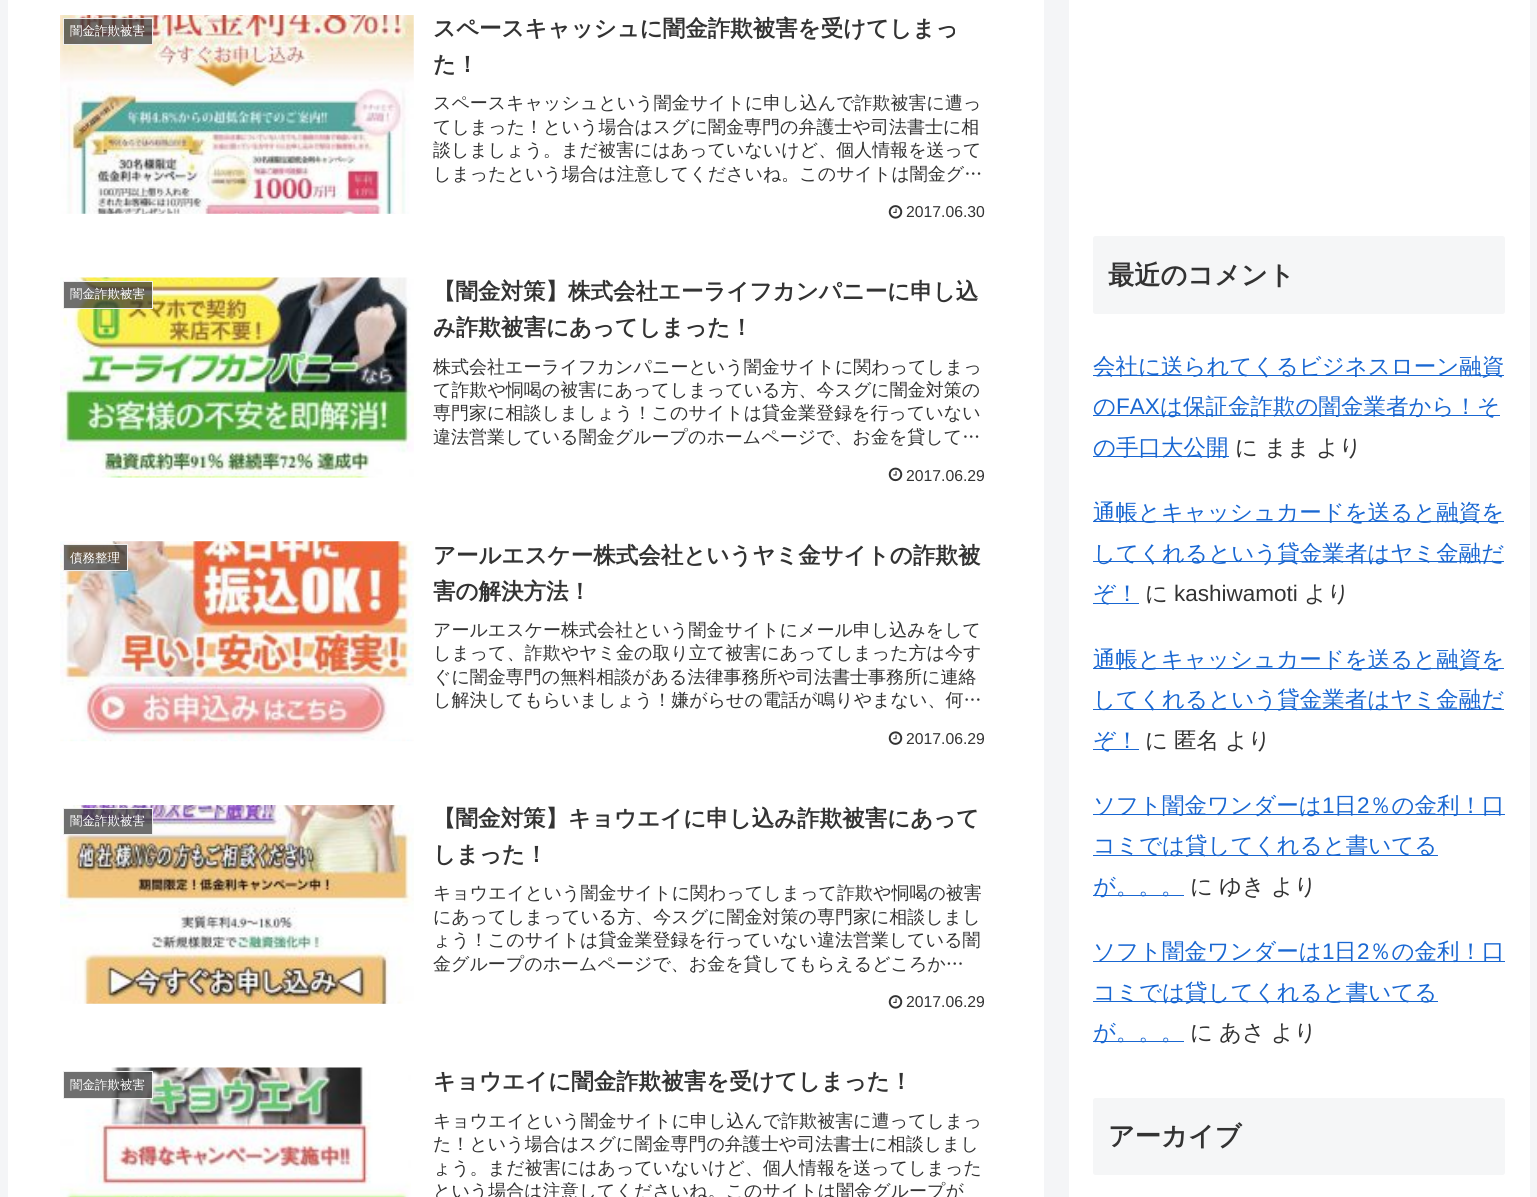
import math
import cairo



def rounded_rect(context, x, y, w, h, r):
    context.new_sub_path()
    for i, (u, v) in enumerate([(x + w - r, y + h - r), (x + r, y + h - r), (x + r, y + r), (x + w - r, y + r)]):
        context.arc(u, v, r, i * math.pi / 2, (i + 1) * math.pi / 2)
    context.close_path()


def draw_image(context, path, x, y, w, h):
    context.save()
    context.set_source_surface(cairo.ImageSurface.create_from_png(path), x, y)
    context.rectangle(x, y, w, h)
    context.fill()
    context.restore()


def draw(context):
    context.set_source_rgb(244 / 255, 245 / 255, 247 / 255)
    context.paint()
    context.set_source_rgb(1, 1, 1)
    context.rectangle(8, 0, 1036, 1197)
    context.fill()
    draw_image(context, "images/1.png", 60, 15, 354, 199)
    context.set_source_rgba(51 / 255, 51 / 255, 51 / 255, 0.7)
    context.rectangle(63.5, 18.5, 89, 26)
    context.fill_preserve()
    context.set_source_rgb(238 / 255, 238 / 255, 238 / 255)
    context.set_line_width(1)
    context.stroke()
    draw_image(context, "images/2.png", 888, 205, 15, 14)
    draw_image(context, "images/3.png", 60, 277, 354, 201)
    context.set_source_rgba(51 / 255, 51 / 255, 51 / 255, 0.7)
    context.rectangle(63.5, 281.5, 89, 27)
    context.fill_preserve()
    context.set_source_rgb(238 / 255, 238 / 255, 238 / 255)
    context.stroke()
    draw_image(context, "images/4.png", 888, 467, 15, 15)
    draw_image(context, "images/5.png", 60, 541, 354, 201)
    context.set_source_rgba(51 / 255, 51 / 255, 51 / 255, 0.7)
    context.rectangle(63.5, 544.5, 64, 26)
    context.fill_preserve()
    context.set_source_rgb(238 / 255, 238 / 255, 238 / 255)
    context.stroke()
    draw_image(context, "images/6.png", 888, 731, 15, 14)
    draw_image(context, "images/7.png", 60, 805, 354, 199)
    context.set_source_rgba(51 / 255, 51 / 255, 51 / 255, 0.7)
    context.rectangle(63.5, 808.5, 89, 26)
    context.fill_preserve()
    context.set_source_rgb(238 / 255, 238 / 255, 238 / 255)
    context.stroke()
    draw_image(context, "images/2.png", 888, 995, 15, 14)
    draw_image(context, "images/8.png", 60, 1067, 351, 130)
    context.set_source_rgba(51 / 255, 51 / 255, 51 / 255, 0.7)
    context.rectangle(63.5, 1071.5, 89, 27)
    context.fill_preserve()
    context.set_source_rgb(238 / 255, 238 / 255, 238 / 255)
    context.stroke()
    context.set_source_rgb(1, 1, 1)
    context.rectangle(1069, 0, 461, 1197)
    context.fill()
    context.set_source_rgb(245 / 255, 246 / 255, 247 / 255)
    rounded_rect(context, 1093, 236, 412, 78, 2.5)
    context.fill()
    context.set_source_rgb(25 / 255, 103 / 255, 210 / 255)
    context.rectangle(1093, 375, 411, 1)
    context.fill()
    context.rectangle(1093, 415, 407, 1)
    context.fill()
    context.rectangle(1093, 456, 136, 1)
    context.fill()
    context.rectangle(1093, 521, 411, 1)
    context.fill()
    context.rectangle(1093, 561, 411, 1)
    context.fill()
    context.rectangle(1093, 603, 46, 1)
    context.fill()
    context.rectangle(1093, 668, 411, 1)
    context.fill()
    context.rectangle(1093, 709, 411, 1)
    context.fill()
    context.rectangle(1093, 749, 46, 1)
    context.fill()
    context.rectangle(1093, 814, 412, 1)
    context.fill()
    context.rectangle(1093, 855, 345, 1)
    context.fill()
    context.rectangle(1093, 895, 91, 1)
    context.fill()
    context.rectangle(1093, 961, 412, 1)
    context.fill()
    context.rectangle(1093, 1001, 345, 1)
    context.fill()
    context.rectangle(1093, 1041, 91, 1)
    context.fill()
    context.set_source_rgb(245 / 255, 246 / 255, 247 / 255)
    rounded_rect(context, 1093, 1098, 412, 77, 2.5)
    context.fill()
    context.select_font_face("WenQuanYi Zen Hei Medium")
    context.set_font_size(12.5)
    context.set_source_rgb(1, 1, 1)
    context.move_to(70, 35)
    context.show_text("闇金詐欺被害")
    context.select_font_face("WenQuanYi Zen Hei", cairo.FontSlant.NORMAL, cairo.FontWeight.BOLD)
    context.set_font_size(22.5)
    context.set_source_rgb(51 / 255, 51 / 255, 51 / 255)
    context.move_to(433, 36)
    context.show_text("スペースキャッシュに闇金詐欺被害を受けてしまっ")
    context.move_to(433, 72)
    context.show_text("た！")
    context.select_font_face("WenQuanYi Zen Hei Medium")
    context.set_font_size(18)
    context.move_to(433, 109)
    context.show_text("スペースキャッシュという闇金サイトに申し込んで詐欺被害に遭っ")
    context.move_to(433, 133)
    context.show_text("てしまった！という場合はスグに闇金専門の弁護士や司法書士に相")
    context.move_to(433, 156)
    context.show_text("談しましょう。まだ被害にはあっていないけど、個人情報を送って")
    context.move_to(433, 180)
    context.show_text("しまったという場合は注意してくださいね。このサイトは闇金グ…")
    context.select_font_face("Liberation Sans")
    context.set_font_size(15.75)
    context.move_to(906, 217)
    context.show_text("2017.06.30")
    context.select_font_face("WenQuanYi Zen Hei Medium")
    context.set_font_size(12.5)
    context.set_source_rgb(1, 1, 1)
    context.move_to(70, 298)
    context.show_text("闇金詐欺被害")
    context.select_font_face("WenQuanYi Zen Hei", cairo.FontSlant.NORMAL, cairo.FontWeight.BOLD)
    context.set_font_size(22.5)
    context.set_source_rgb(51 / 255, 51 / 255, 51 / 255)
    context.move_to(433, 299)
    context.show_text("【闇金対策】株式会社エーライフカンパニーに申し込")
    context.move_to(433, 335)
    context.show_text("み詐欺被害にあってしまった！")
    context.select_font_face("WenQuanYi Zen Hei Medium")
    context.set_font_size(18)
    context.move_to(433, 373)
    context.show_text("株式会社エーライフカンパニーという闇金サイトに関わってしまっ")
    context.move_to(433, 396)
    context.show_text("て詐欺や恫喝の被害にあってしまっている方、今スグに闇金対策の")
    context.move_to(433, 419)
    context.show_text("専門家に相談しましょう！このサイトは貸金業登録を行っていない")
    context.move_to(433, 443)
    context.show_text("違法営業している闇金グループのホームページで、お金を貸して…")
    context.select_font_face("Liberation Sans")
    context.set_font_size(15.75)
    context.move_to(906, 481)
    context.show_text("2017.06.29")
    context.select_font_face("WenQuanYi Zen Hei Medium")
    context.set_font_size(12.5)
    context.set_source_rgb(1, 1, 1)
    context.move_to(70, 562)
    context.show_text("債務整理")
    context.select_font_face("WenQuanYi Zen Hei", cairo.FontSlant.NORMAL, cairo.FontWeight.BOLD)
    context.set_font_size(22.5)
    context.set_source_rgb(51 / 255, 51 / 255, 51 / 255)
    context.move_to(433, 563)
    context.show_text("アールエスケー株式会社というヤミ金サイトの詐欺被")
    context.move_to(433, 599)
    context.show_text("害の解決方法！")
    context.select_font_face("WenQuanYi Zen Hei Medium")
    context.set_font_size(18)
    context.move_to(433, 636)
    context.show_text("アールエスケー株式会社という闇金サイトにメール申し込みをして")
    context.move_to(433, 659)
    context.show_text("しまって、詐欺やヤミ金の取り立て被害にあってしまった方は今す")
    context.move_to(433, 683)
    context.show_text("ぐに闇金専門の無料相談がある法律事務所や司法書士事務所に連絡")
    context.move_to(433, 706)
    context.show_text("し解決してもらいましょう！嫌がらせの電話が鳴りやまない、何…")
    context.select_font_face("Liberation Sans")
    context.set_font_size(15.75)
    context.move_to(906, 744)
    context.show_text("2017.06.29")
    context.select_font_face("WenQuanYi Zen Hei Medium")
    context.set_font_size(12.5)
    context.set_source_rgb(1, 1, 1)
    context.move_to(70, 825)
    context.show_text("闇金詐欺被害")
    context.select_font_face("WenQuanYi Zen Hei", cairo.FontSlant.NORMAL, cairo.FontWeight.BOLD)
    context.set_font_size(22.5)
    context.set_source_rgb(51 / 255, 51 / 255, 51 / 255)
    context.move_to(433, 826)
    context.show_text("【闇金対策】キョウエイに申し込み詐欺被害にあって")
    context.move_to(433, 862)
    context.show_text("しまった！")
    context.select_font_face("WenQuanYi Zen Hei Medium")
    context.set_font_size(18)
    context.move_to(433, 899)
    context.show_text("キョウエイという闇金サイトに関わってしまって詐欺や恫喝の被害")
    context.move_to(433, 923)
    context.show_text("にあってしまっている方、今スグに闇金対策の専門家に相談しまし")
    context.move_to(433, 946)
    context.show_text("ょう！このサイトは貸金業登録を行っていない違法営業している闇")
    context.move_to(433, 970)
    context.show_text("金グループのホームページで、お金を貸してもらえるどころか…")
    context.select_font_face("Liberation Sans")
    context.set_font_size(15.75)
    context.move_to(906, 1007)
    context.show_text("2017.06.29")
    context.select_font_face("WenQuanYi Zen Hei Medium")
    context.set_font_size(12.5)
    context.set_source_rgb(1, 1, 1)
    context.move_to(70, 1089)
    context.show_text("闇金詐欺被害")
    context.select_font_face("WenQuanYi Zen Hei", cairo.FontSlant.NORMAL, cairo.FontWeight.BOLD)
    context.set_font_size(22.5)
    context.set_source_rgb(51 / 255, 51 / 255, 51 / 255)
    context.move_to(433, 1089)
    context.show_text("キョウエイに闇金詐欺被害を受けてしまった！")
    context.select_font_face("WenQuanYi Zen Hei Medium")
    context.set_font_size(18)
    context.move_to(433, 1127)
    context.show_text("キョウエイという闇金サイトに申し込んで詐欺被害に遭ってしまっ")
    context.move_to(433, 1150)
    context.show_text("た！という場合はスグに闇金専門の弁護士や司法書士に相談しまし")
    context.move_to(433, 1174)
    context.show_text("ょう。まだ被害にはあっていないけど、個人情報を送ってしまった")
    context.move_to(433, 1197)
    context.show_text("という場合は注意してくださいね。このサイトは闇金グループが")
    context.select_font_face("WenQuanYi Zen Hei", cairo.FontSlant.NORMAL, cairo.FontWeight.BOLD)
    context.set_font_size(26.25)
    context.move_to(1108, 284)
    context.show_text("最近のコメント")
    context.select_font_face("WenQuanYi Zen Hei Medium")
    context.set_font_size(22.5)
    context.set_source_rgb(25 / 255, 103 / 255, 210 / 255)
    context.move_to(1093, 374)
    context.show_text("会社に送られてくるビジネスローン融資")
    context.move_to(1093, 414)
    context.show_text("の")
    context.select_font_face("Liberation Sans")
    context.move_to(1116, 414)
    context.show_text("FAX")
    context.select_font_face("WenQuanYi Zen Hei Medium")
    context.move_to(1160, 414)
    context.show_text("は保証金詐欺の闇金業者から！そ")
    context.move_to(1093, 455)
    context.show_text("の手口大公開")
    context.set_source_rgb(51 / 255, 51 / 255, 51 / 255)
    context.move_to(1235, 455)
    context.show_text("に")
    context.move_to(1264, 455)
    context.show_text("まま")
    context.move_to(1316, 455)
    context.show_text("より")
    context.set_source_rgb(25 / 255, 103 / 255, 210 / 255)
    context.move_to(1093, 520)
    context.show_text("通帳とキャッシュカードを送ると融資を")
    context.move_to(1093, 561)
    context.show_text("してくれるという貸金業者はヤミ金融だ")
    context.move_to(1093, 601)
    context.show_text("ぞ！")
    context.set_source_rgb(51 / 255, 51 / 255, 51 / 255)
    context.move_to(1145, 601)
    context.show_text("に")
    context.select_font_face("Liberation Sans")
    context.move_to(1174, 601)
    context.show_text("kashiwamoti")
    context.select_font_face("WenQuanYi Zen Hei Medium")
    context.move_to(1304, 601)
    context.show_text("より")
    context.set_source_rgb(25 / 255, 103 / 255, 210 / 255)
    context.move_to(1093, 667)
    context.show_text("通帳とキャッシュカードを送ると融資を")
    context.move_to(1093, 707)
    context.show_text("してくれるという貸金業者はヤミ金融だ")
    context.move_to(1093, 748)
    context.show_text("ぞ！")
    context.set_source_rgb(51 / 255, 51 / 255, 51 / 255)
    context.move_to(1145, 748)
    context.show_text("に")
    context.move_to(1174, 748)
    context.show_text("匿名")
    context.move_to(1225, 748)
    context.show_text("より")
    context.set_source_rgb(25 / 255, 103 / 255, 210 / 255)
    context.move_to(1093, 813)
    context.show_text("ソフト闇金ワンダーは")
    context.select_font_face("Liberation Sans")
    context.move_to(1322, 813)
    context.show_text("1")
    context.select_font_face("WenQuanYi Zen Hei Medium")
    context.move_to(1334, 813)
    context.show_text("日")
    context.select_font_face("Liberation Sans")
    context.move_to(1357, 813)
    context.show_text("2")
    context.select_font_face("WenQuanYi Zen Hei Medium")
    context.move_to(1369, 813)
    context.show_text("％の金利！口")
    context.move_to(1093, 853)
    context.show_text("コミでは貸してくれると書いてる")
    context.move_to(1093, 894)
    context.show_text("が。。。")
    context.set_source_rgb(51 / 255, 51 / 255, 51 / 255)
    context.move_to(1190, 894)
    context.show_text("に")
    context.move_to(1219, 894)
    context.show_text("ゆき")
    context.move_to(1271, 894)
    context.show_text("より")
    context.set_source_rgb(25 / 255, 103 / 255, 210 / 255)
    context.move_to(1093, 959)
    context.show_text("ソフト闇金ワンダーは")
    context.select_font_face("Liberation Sans")
    context.move_to(1322, 959)
    context.show_text("1")
    context.select_font_face("WenQuanYi Zen Hei Medium")
    context.move_to(1334, 959)
    context.show_text("日")
    context.select_font_face("Liberation Sans")
    context.move_to(1357, 959)
    context.show_text("2")
    context.select_font_face("WenQuanYi Zen Hei Medium")
    context.move_to(1369, 959)
    context.show_text("％の金利！口")
    context.move_to(1093, 1000)
    context.show_text("コミでは貸してくれると書いてる")
    context.move_to(1093, 1040)
    context.show_text("が。。。")
    context.set_source_rgb(51 / 255, 51 / 255, 51 / 255)
    context.move_to(1190, 1040)
    context.show_text("に")
    context.move_to(1219, 1040)
    context.show_text("あさ")
    context.move_to(1271, 1040)
    context.show_text("より")
    context.select_font_face("WenQuanYi Zen Hei", cairo.FontSlant.NORMAL, cairo.FontWeight.BOLD)
    context.set_font_size(26.25)
    context.move_to(1108, 1145)
    context.show_text("アーカイブ")


surface = cairo.ImageSurface(cairo.Format.RGB24, 1537, 1197)
context = cairo.Context(surface)
options = cairo.FontOptions()
options.set_hint_metrics(cairo.HintMetrics.OFF)
options.set_hint_style(cairo.HintStyle.NONE)
context.set_font_options(options)
context.set_miter_limit(4)
draw(context)
surface.write_to_png("out.png")
